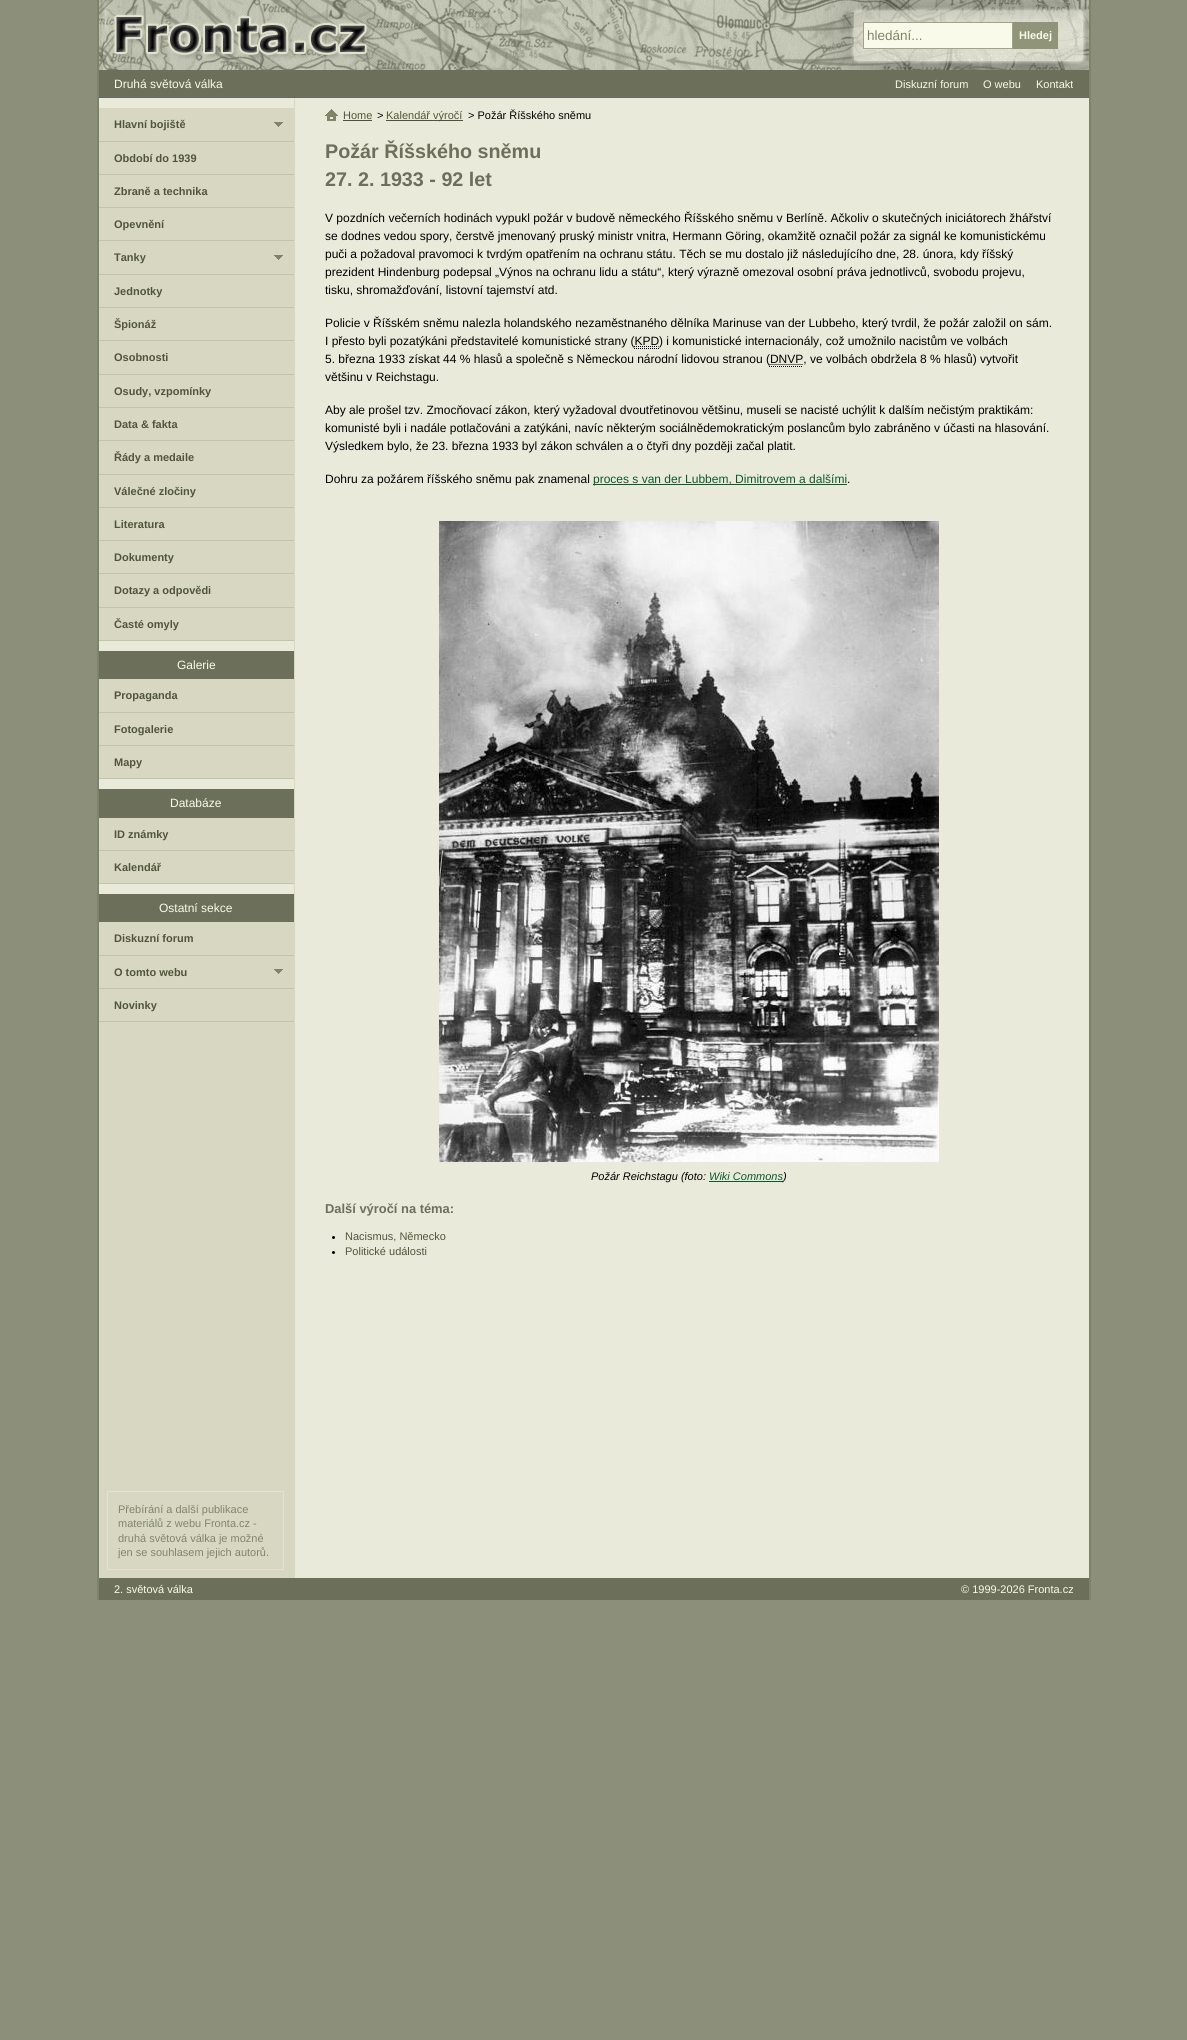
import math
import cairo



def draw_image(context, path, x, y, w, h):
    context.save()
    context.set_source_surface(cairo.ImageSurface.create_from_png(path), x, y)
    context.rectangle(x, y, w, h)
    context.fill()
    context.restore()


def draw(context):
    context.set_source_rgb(140 / 255, 144 / 255, 122 / 255)
    context.paint()
    draw_image(context, "images/1.png", 97, 0, 994, 1600)
    context.set_source_rgb(234 / 255, 234 / 255, 219 / 255)
    context.rectangle(295, 98, 794, 1480)
    context.fill()
    context.set_source_rgb(216 / 255, 216 / 255, 194 / 255)
    context.rectangle(99, 98, 196, 1480)
    context.fill()
    draw_image(context, "images/2.png", 99, 0, 990, 70)
    context.set_source_rgb(250 / 255, 250 / 255, 235 / 255)
    context.rectangle(863.5, 22.5, 149, 26)
    context.fill_preserve()
    context.set_source_rgb(160 / 255, 165 / 255, 138 / 255)
    context.set_line_width(1)
    context.stroke()
    context.set_source_rgb(144 / 255, 149 / 255, 122 / 255)
    context.rectangle(1013, 22, 45, 27)
    context.fill()
    context.set_source_rgb(108 / 255, 112 / 255, 90 / 255)
    context.rectangle(99, 70, 990, 27)
    context.fill()
    context.set_source_rgb(102 / 255, 102 / 255, 102 / 255)
    context.rectangle(99, 97, 990, 1)
    context.fill()
    context.set_source_rgb(234 / 255, 234 / 255, 219 / 255)
    context.rectangle(99, 98, 195, 10)
    context.fill()
    context.set_source_rgb(192 / 255, 197 / 255, 170 / 255)
    context.rectangle(99, 141, 195, 1)
    context.fill()
    draw_image(context, "images/3.png", 274, 122, 9, 5)
    context.rectangle(99, 174, 195, 1)
    context.fill()
    context.rectangle(99, 207, 195, 1)
    context.fill()
    context.rectangle(99, 240, 195, 1)
    context.fill()
    context.rectangle(99, 274, 195, 1)
    context.fill()
    draw_image(context, "images/3.png", 274, 255, 9, 5)
    context.rectangle(99, 307, 195, 1)
    context.fill()
    context.rectangle(99, 340, 195, 1)
    context.fill()
    context.rectangle(99, 374, 195, 1)
    context.fill()
    context.rectangle(99, 407, 195, 1)
    context.fill()
    context.rectangle(99, 440, 195, 1)
    context.fill()
    context.rectangle(99, 474, 195, 1)
    context.fill()
    context.rectangle(99, 507, 195, 1)
    context.fill()
    context.rectangle(99, 540, 195, 1)
    context.fill()
    context.rectangle(99, 573, 195, 1)
    context.fill()
    context.rectangle(99, 607, 195, 1)
    context.fill()
    context.rectangle(99, 640, 195, 1)
    context.fill()
    context.set_source_rgb(108 / 255, 112 / 255, 90 / 255)
    context.rectangle(99, 651, 195, 28)
    context.fill()
    context.set_source_rgb(234 / 255, 234 / 255, 219 / 255)
    context.rectangle(99, 641, 195, 10)
    context.fill()
    context.set_source_rgb(192 / 255, 197 / 255, 170 / 255)
    context.rectangle(99, 712, 195, 1)
    context.fill()
    context.rectangle(99, 745, 195, 1)
    context.fill()
    context.rectangle(99, 778, 195, 1)
    context.fill()
    context.set_source_rgb(108 / 255, 112 / 255, 90 / 255)
    context.rectangle(99, 789, 195, 29)
    context.fill()
    context.set_source_rgb(234 / 255, 234 / 255, 219 / 255)
    context.rectangle(99, 779, 195, 10)
    context.fill()
    context.set_source_rgb(192 / 255, 197 / 255, 170 / 255)
    context.rectangle(99, 850, 195, 1)
    context.fill()
    context.rectangle(99, 883, 195, 1)
    context.fill()
    context.set_source_rgb(108 / 255, 112 / 255, 90 / 255)
    context.rectangle(99, 894, 195, 28)
    context.fill()
    context.set_source_rgb(234 / 255, 234 / 255, 219 / 255)
    context.rectangle(99, 884, 195, 10)
    context.fill()
    context.set_source_rgb(192 / 255, 197 / 255, 170 / 255)
    context.rectangle(99, 955, 195, 1)
    context.fill()
    context.rectangle(99, 988, 195, 1)
    context.fill()
    draw_image(context, "images/3.png", 274, 969, 9, 5)
    context.rectangle(99, 1021, 195, 1)
    context.fill()
    draw_image(context, "images/4.png", 325, 109, 13, 12)
    context.set_source_rgb(80 / 255, 85 / 255, 58 / 255)
    context.rectangle(343, 120, 29, 1)
    context.fill()
    context.rectangle(386, 120, 77, 1)
    context.fill()
    context.new_path()
    context.move_to(634, 348.5)
    context.line_to(659, 348.5)
    context.move_to(634, 346.5)
    context.line_to(658.5, 346.5)
    context.set_source_rgb(0, 0, 0)
    context.set_dash([1, 1])
    context.stroke()
    context.new_path()
    context.move_to(769, 366.5)
    context.line_to(803, 366.5)
    context.move_to(769.5, 364.5)
    context.line_to(803, 364.5)
    context.stroke()
    context.set_source_rgb(12 / 255, 89 / 255, 41 / 255)
    context.rectangle(593, 484, 254, 1)
    context.fill()
    draw_image(context, "images/5.png", 439, 521, 500, 641)
    context.rectangle(709, 1181, 74, 1)
    context.fill()
    context.set_source_rgb(0, 0, 0)
    context.arc(333.5, 1237.5, 1.5, 0, 2 * math.pi)
    context.fill()
    context.arc(333.5, 1252.5, 1.5, 0, 2 * math.pi)
    context.fill()
    context.rectangle(107.5, 1491.5, 176, 78)
    context.set_source_rgb(226 / 255, 226 / 255, 211 / 255)
    context.set_dash([])
    context.stroke()
    context.set_source_rgb(108 / 255, 112 / 255, 90 / 255)
    context.rectangle(99, 1578, 990, 22)
    context.fill()
    context.select_font_face("Liberation Sans")
    context.set_font_size(13.5)
    context.set_source_rgb(128 / 255, 133 / 255, 106 / 255)
    context.move_to(867, 40)
    context.show_text("hledání...")
    context.select_font_face("Liberation Sans", cairo.FontSlant.NORMAL, cairo.FontWeight.BOLD)
    context.set_font_size(11)
    context.set_source_rgb(250 / 255, 250 / 255, 235 / 255)
    context.move_to(1019, 39)
    context.show_text("Hledej")
    context.select_font_face("Liberation Sans")
    context.set_font_size(12)
    context.move_to(114, 88)
    context.show_text("Druhá světová válka")
    context.select_font_face("Liberation Sans", cairo.FontSlant.NORMAL, cairo.FontWeight.BOLD)
    context.set_font_size(11)
    context.set_source_rgb(80 / 255, 85 / 255, 58 / 255)
    context.move_to(114, 128)
    context.show_text("Hlavní bojiště")
    context.move_to(114, 162)
    context.show_text("Období do 1939")
    context.move_to(114, 195)
    context.show_text("Zbraně a technika")
    context.move_to(114, 228)
    context.show_text("Opevnění")
    context.move_to(114, 261)
    context.show_text("Tanky")
    context.move_to(114, 295)
    context.show_text("Jednotky")
    context.move_to(114, 328)
    context.show_text("Špionáž")
    context.move_to(114, 361)
    context.show_text("Osobnosti")
    context.move_to(114, 395)
    context.show_text("Osudy, vzpomínky")
    context.move_to(114, 428)
    context.show_text("Data & fakta")
    context.move_to(114, 461)
    context.show_text("Řády a medaile")
    context.move_to(114, 495)
    context.show_text("Válečné zločiny")
    context.move_to(114, 528)
    context.show_text("Literatura")
    context.move_to(114, 561)
    context.show_text("Dokumenty")
    context.move_to(114, 594)
    context.show_text("Dotazy a odpovědi")
    context.move_to(114, 628)
    context.show_text("Časté omyly")
    context.select_font_face("Liberation Sans")
    context.set_font_size(12)
    context.set_source_rgb(250 / 255, 250 / 255, 235 / 255)
    context.move_to(177, 669)
    context.show_text("Galerie")
    context.select_font_face("Liberation Sans", cairo.FontSlant.NORMAL, cairo.FontWeight.BOLD)
    context.set_font_size(11)
    context.set_source_rgb(80 / 255, 85 / 255, 58 / 255)
    context.move_to(114, 699)
    context.show_text("Propaganda")
    context.move_to(114, 733)
    context.show_text("Fotogalerie")
    context.move_to(114, 766)
    context.show_text("Mapy")
    context.select_font_face("Liberation Sans")
    context.set_font_size(12)
    context.set_source_rgb(250 / 255, 250 / 255, 235 / 255)
    context.move_to(170, 807)
    context.show_text("Databáze")
    context.select_font_face("Liberation Sans", cairo.FontSlant.NORMAL, cairo.FontWeight.BOLD)
    context.set_font_size(11)
    context.set_source_rgb(80 / 255, 85 / 255, 58 / 255)
    context.move_to(114, 838)
    context.show_text("ID známky")
    context.move_to(114, 871)
    context.show_text("Kalendář")
    context.select_font_face("Liberation Sans")
    context.set_font_size(12)
    context.set_source_rgb(250 / 255, 250 / 255, 235 / 255)
    context.move_to(159, 912)
    context.show_text("Ostatní sekce")
    context.select_font_face("Liberation Sans", cairo.FontSlant.NORMAL, cairo.FontWeight.BOLD)
    context.set_font_size(11)
    context.set_source_rgb(80 / 255, 85 / 255, 58 / 255)
    context.move_to(114, 942)
    context.show_text("Diskuzní forum")
    context.move_to(114, 976)
    context.show_text("O tomto webu")
    context.move_to(114, 1009)
    context.show_text("Novinky")
    context.select_font_face("Liberation Sans")
    context.move_to(343, 119)
    context.show_text("Home")
    context.set_source_rgb(0, 0, 0)
    context.move_to(377, 119)
    context.show_text(">")
    context.set_source_rgb(80 / 255, 85 / 255, 58 / 255)
    context.move_to(386, 119)
    context.show_text("Kalendář výročí")
    context.set_source_rgb(0, 0, 0)
    context.move_to(468, 119)
    context.show_text("> Požár Říšského sněmu")
    context.select_font_face("Liberation Sans", cairo.FontSlant.NORMAL, cairo.FontWeight.BOLD)
    context.set_font_size(19.75)
    context.set_source_rgb(108 / 255, 112 / 255, 90 / 255)
    context.move_to(325, 158)
    context.show_text("Požár Říšského sněmu")
    context.move_to(325, 186)
    context.show_text("27. 2. 1933 - 92 let")
    context.select_font_face("Liberation Sans")
    context.set_font_size(12)
    context.set_source_rgb(0, 0, 0)
    context.move_to(325, 222)
    context.show_text("V pozdních večerních hodinách vypukl požár v budově německého Říšského sněmu v Berlíně. Ačkoliv o skutečných iniciátorech žhářství")
    context.move_to(325, 240)
    context.show_text("se dodnes vedou spory, čerstvě jmenovaný pruský ministr vnitra, Hermann Göring, okamžitě označil požár za signál ke komunistickému")
    context.move_to(325, 258)
    context.show_text("puči a požadoval pravomoci k tvrdým opatřením na ochranu státu. Těch se mu dostalo již následujícího dne, 28. února, kdy říšský")
    context.move_to(325, 276)
    context.show_text("prezident Hindenburg podepsal „Výnos na ochranu lidu a státu“, který výrazně omezoval osobní práva jednotlivců, svobodu projevu,")
    context.move_to(325, 294)
    context.show_text("tisku, shromažďování, listovní tajemství atd.")
    context.move_to(325, 327)
    context.show_text("Policie v Říšském sněmu nalezla holandského nezaměstnaného dělníka Marinuse van der Lubbeho, který tvrdil, že požár založil on sám.")
    context.move_to(325, 345)
    context.show_text("I přesto byli pozatýkáni představitelé komunistické strany (KPD")
    context.move_to(659, 345)
    context.show_text(") i komunistické internacionály, což umožnilo nacistům ve volbách")
    context.move_to(325, 363)
    context.show_text("5. března 1933 získat 44 % hlasů a společně s Německou národní lidovou stranou (DNVP, ve volbách obdržela 8 % hlasů) vytvořit")
    context.move_to(325, 381)
    context.show_text("většinu v Reichstagu.")
    context.move_to(325, 414)
    context.show_text("Aby ale prošel tzv. Zmocňovací zákon, který vyžadoval dvoutřetinovou většinu, museli se nacisté uchýlit k dalším nečistým praktikám:")
    context.move_to(325, 432)
    context.show_text("komunisté byli i nadále potlačováni a zatýkáni, navíc některým sociálnědemokratickým poslancům bylo zabráněno v účasti na hlasování.")
    context.move_to(325, 450)
    context.show_text("Výsledkem bylo, že 23. března 1933 byl zákon schválen a o čtyři dny později začal platit.")
    context.move_to(325, 483)
    context.show_text("Dohru za požárem říšského sněmu pak znamenal")
    context.set_source_rgb(12 / 255, 89 / 255, 41 / 255)
    context.move_to(593, 483)
    context.show_text("proces s van der Lubbem, Dimitrovem a dalšími")
    context.set_source_rgb(0, 0, 0)
    context.move_to(847, 483)
    context.show_text(".")
    context.select_font_face("Liberation Sans", cairo.FontSlant.ITALIC)
    context.set_font_size(11)
    context.move_to(591, 1180)
    context.show_text("Požár Reichstagu (foto:")
    context.set_source_rgb(12 / 255, 89 / 255, 41 / 255)
    context.move_to(709, 1180)
    context.show_text("Wiki Commons")
    context.set_source_rgb(0, 0, 0)
    context.move_to(783, 1180)
    context.show_text(")")
    context.select_font_face("Liberation Sans", cairo.FontSlant.NORMAL, cairo.FontWeight.BOLD)
    context.set_font_size(12.9)
    context.set_source_rgb(108 / 255, 112 / 255, 90 / 255)
    context.move_to(325, 1213)
    context.show_text("Další výročí na téma:")
    context.select_font_face("Liberation Sans")
    context.set_font_size(11)
    context.set_source_rgb(80 / 255, 85 / 255, 58 / 255)
    context.move_to(345, 1240)
    context.show_text("Nacismus, Německo")
    context.move_to(345, 1255)
    context.show_text("Politické události")
    context.set_source_rgb(250 / 255, 250 / 255, 235 / 255)
    context.move_to(895, 88)
    context.show_text("Diskuzní forum")
    context.move_to(983, 88)
    context.show_text("O webu")
    context.move_to(1036, 88)
    context.show_text("Kontakt")
    context.set_source_rgb(128 / 255, 133 / 255, 106 / 255)
    context.move_to(118, 1513)
    context.show_text("Přebírání a další publikace")
    context.move_to(118, 1527)
    context.show_text("materiálů z webu Fronta.cz -")
    context.move_to(118, 1542)
    context.show_text("druhá světová válka je možné")
    context.move_to(118, 1556)
    context.show_text("jen se souhlasem jejich autorů.")
    context.set_source_rgb(250 / 255, 250 / 255, 235 / 255)
    context.move_to(114, 1593)
    context.show_text("2. světová válka")
    context.move_to(961, 1593)
    context.show_text("© 1999-2026 Fronta.cz")


surface = cairo.ImageSurface(cairo.Format.RGB24, 1187, 2040)
context = cairo.Context(surface)
options = cairo.FontOptions()
options.set_hint_metrics(cairo.HintMetrics.OFF)
options.set_hint_style(cairo.HintStyle.NONE)
context.set_font_options(options)
context.set_miter_limit(4)
draw(context)
surface.write_to_png("out.png")
